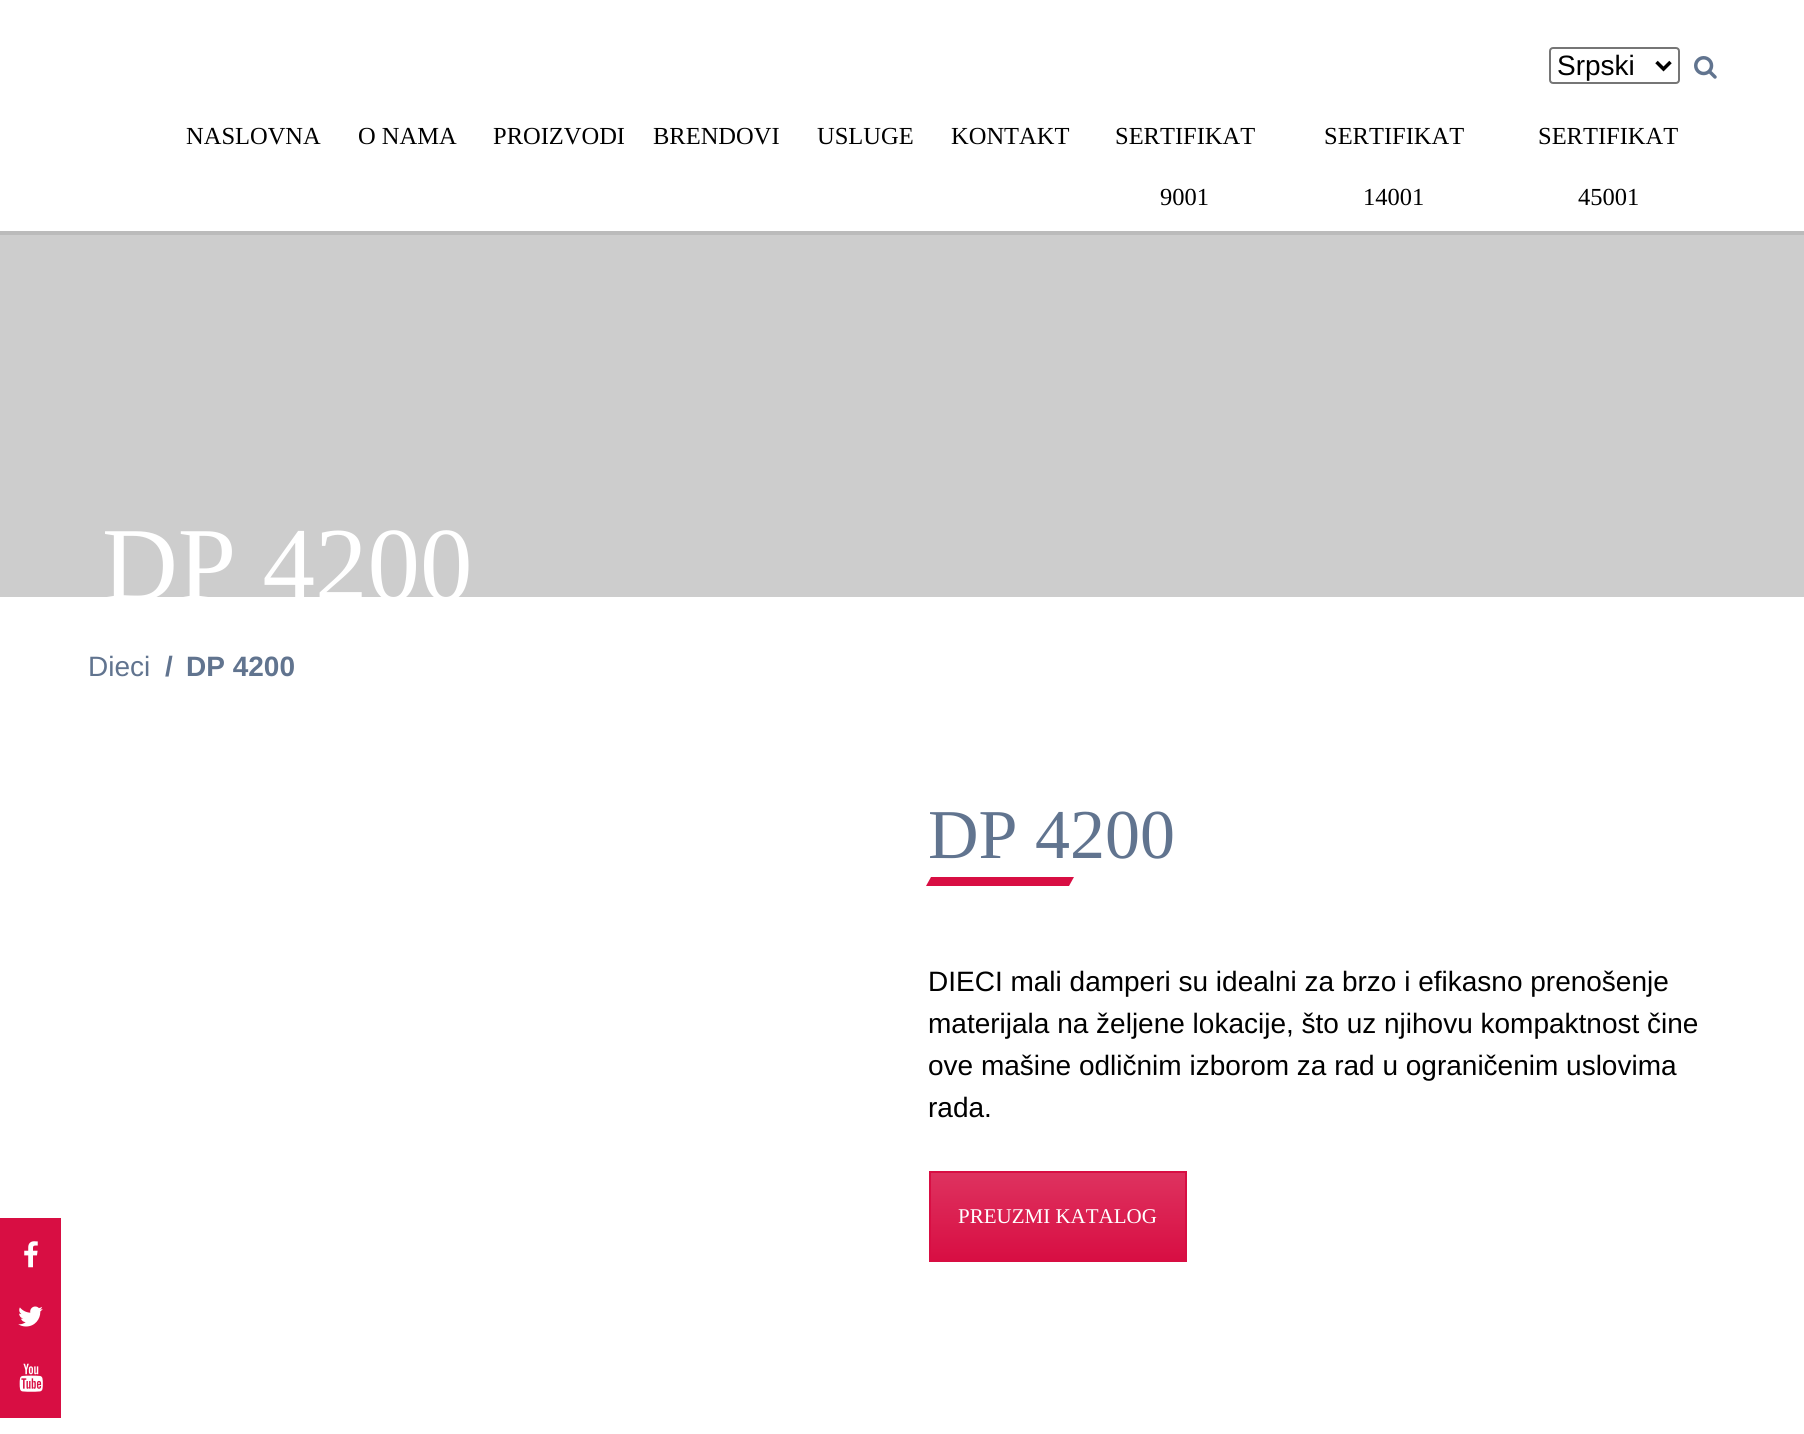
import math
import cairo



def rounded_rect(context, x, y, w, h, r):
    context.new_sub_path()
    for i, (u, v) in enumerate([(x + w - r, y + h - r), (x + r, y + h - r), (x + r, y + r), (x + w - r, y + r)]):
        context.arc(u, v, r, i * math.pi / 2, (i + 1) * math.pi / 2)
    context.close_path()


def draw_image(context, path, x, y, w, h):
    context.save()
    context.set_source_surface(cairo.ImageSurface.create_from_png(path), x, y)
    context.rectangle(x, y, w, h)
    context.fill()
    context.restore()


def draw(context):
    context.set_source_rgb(1, 1, 1)
    context.paint()
    context.set_source_rgb(187 / 255, 187 / 255, 187 / 255)
    context.rectangle(0, 231, 1804, 4)
    context.fill()
    rounded_rect(context, 1550, 48, 129, 35, 3)
    context.set_source_rgb(118 / 255, 118 / 255, 118 / 255)
    context.stroke()
    context.new_path()
    context.move_to(1656.5, 62)
    context.line_to(1663.5, 69)
    context.line_to(1670.5, 62)
    context.set_source_rgb(0, 0, 0)
    context.set_line_width(3.5)
    context.stroke()
    draw_image(context, "images/1.png", 1694, 56, 23, 23)
    context.set_source_rgb(205 / 255, 205 / 255, 205 / 255)
    context.rectangle(0, 235, 1804, 362)
    context.fill()
    context.set_source_rgb(216 / 255, 14 / 255, 67 / 255)
    context.new_path()
    context.move_to(931, 877)
    context.line_to(1074, 877)
    context.line_to(1069, 886)
    context.line_to(926, 886)
    context.close_path()
    context.fill()
    gradient = cairo.LinearGradient(1058, 1173, 1058, 1260)
    gradient.add_color_stop_rgba(0, 222 / 255, 50 / 255, 95 / 255, 1)
    gradient.add_color_stop_rgba(1, 216 / 255, 14 / 255, 67 / 255, 1)
    context.set_source(gradient)
    context.rectangle(931, 1173, 254, 87)
    context.fill()
    context.rectangle(930, 1172, 256, 89)
    context.set_source_rgb(216 / 255, 14 / 255, 67 / 255)
    context.set_line_width(2)
    context.stroke()
    context.rectangle(0, 1218, 61, 200)
    context.fill()
    draw_image(context, "images/2.png", 24, 1241, 14, 27)
    draw_image(context, "images/3.png", 18, 1306, 25, 21)
    draw_image(context, "images/4.png", 19, 1363, 24, 29)
    context.select_font_face("Liberation Sans")
    context.set_font_size(28)
    context.set_source_rgb(0, 0, 0)
    context.move_to(1557, 75)
    context.show_text("Srpski")
    context.select_font_face("Liberation Serif")
    context.set_font_size(24.5)
    context.move_to(186, 144)
    context.show_text("NASLOVNA")
    context.move_to(358, 144)
    context.show_text("O NAMA")
    context.move_to(493, 144)
    context.show_text("PROIZVODI")
    context.move_to(653, 144)
    context.show_text("BRENDOVI")
    context.move_to(817, 144)
    context.show_text("USLUGE")
    context.move_to(951, 144)
    context.show_text("KONTAKT")
    context.move_to(1115, 144)
    context.show_text("SERTIFIKAT")
    context.move_to(1160, 205)
    context.show_text("9001")
    context.move_to(1324, 144)
    context.show_text("SERTIFIKAT")
    context.move_to(1363, 205)
    context.show_text("14001")
    context.move_to(1538, 144)
    context.show_text("SERTIFIKAT")
    context.move_to(1578, 205)
    context.show_text("45001")
    context.set_font_size(105)
    context.set_source_rgb(1, 1, 1)
    context.move_to(102, 600)
    context.show_text("DP 4200")
    context.select_font_face("Liberation Sans")
    context.set_font_size(28)
    context.set_source_rgb(97 / 255, 116 / 255, 143 / 255)
    context.move_to(88, 676)
    context.show_text("Dieci")
    context.select_font_face("Liberation Sans", cairo.FontSlant.NORMAL, cairo.FontWeight.BOLD)
    context.move_to(165, 676)
    context.show_text("/")
    context.move_to(186, 676)
    context.show_text("DP 4200")
    context.select_font_face("Liberation Serif")
    context.set_font_size(70)
    context.move_to(928, 858)
    context.show_text("DP 4200")
    context.select_font_face("Liberation Sans")
    context.set_font_size(28)
    context.set_source_rgb(0, 0, 0)
    context.move_to(928, 991)
    context.show_text("DIECI mali damperi su idealni za brzo i efikasno prenošenje")
    context.move_to(928, 1033)
    context.show_text("materijala na željene lokacije, što uz njihovu kompaktnost čine")
    context.move_to(928, 1075)
    context.show_text("ove mašine odličnim izborom za rad u ograničenim uslovima")
    context.move_to(928, 1117)
    context.show_text("rada.")
    context.select_font_face("Liberation Serif")
    context.set_font_size(21)
    context.set_source_rgb(1, 1, 1)
    context.move_to(958, 1223)
    context.show_text("PREUZMI KATALOG")


surface = cairo.ImageSurface(cairo.Format.RGB24, 1804, 1434)
context = cairo.Context(surface)
options = cairo.FontOptions()
options.set_hint_metrics(cairo.HintMetrics.OFF)
options.set_hint_style(cairo.HintStyle.NONE)
context.set_font_options(options)
context.set_miter_limit(4)
draw(context)
surface.write_to_png("out.png")
